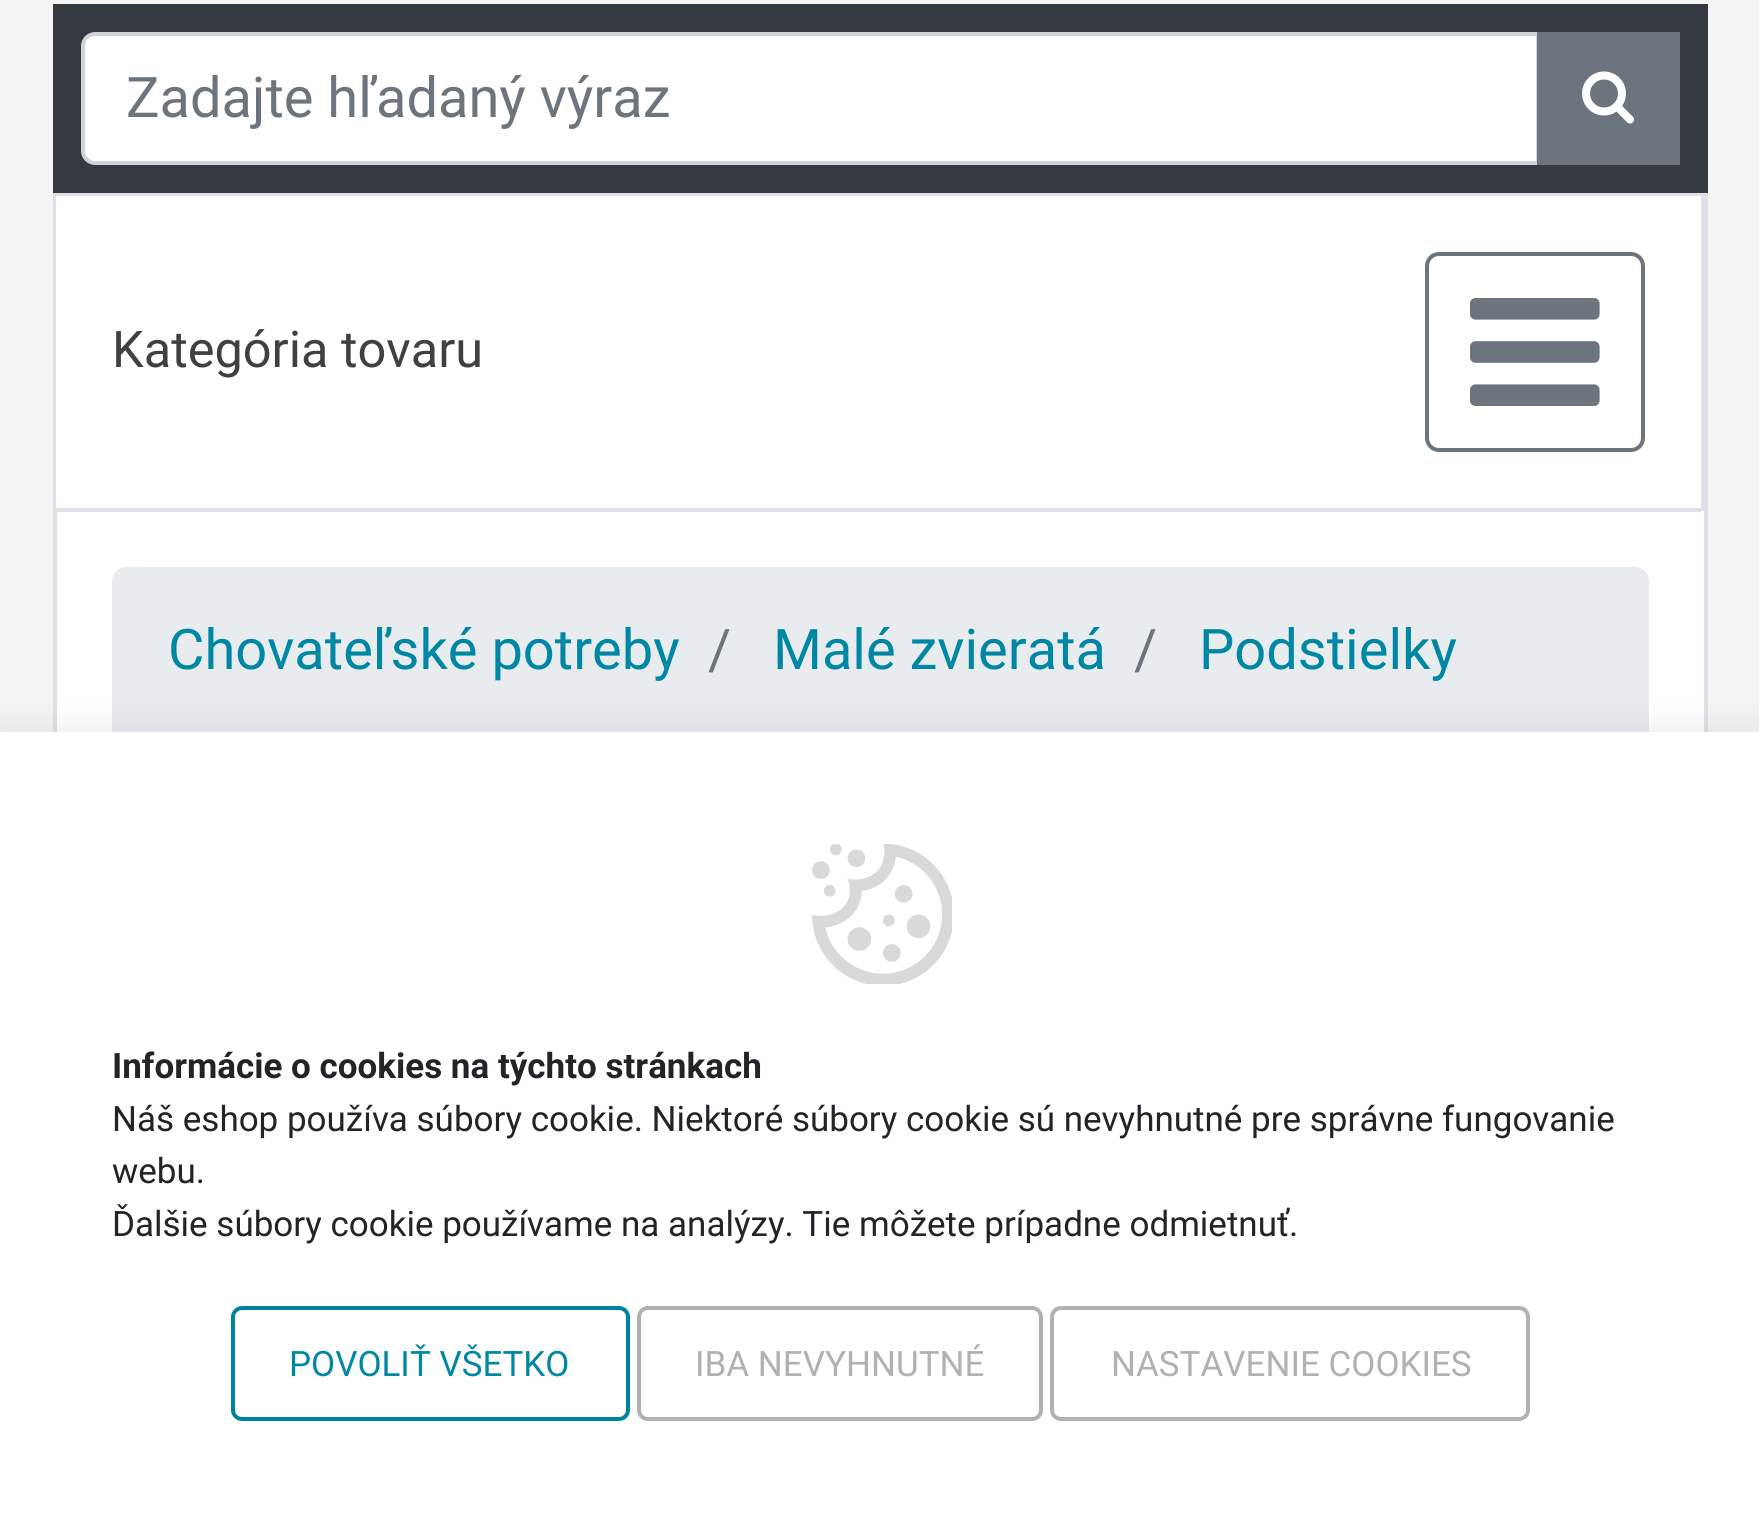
import math
import cairo



def rounded_rect(context, x, y, w, h, r):
    context.new_sub_path()
    for i, (u, v) in enumerate([(x + w - r, y + h - r), (x + r, y + h - r), (x + r, y + r), (x + w - r, y + r)]):
        context.arc(u, v, r, i * math.pi / 2, (i + 1) * math.pi / 2)
    context.close_path()


def draw_shadow(context, x, y, w, h, r, blur, alpha):
    context.push_group_with_content(cairo.Content.ALPHA)
    context.set_operator(cairo.Operator.SOURCE)
    for i in range(15, -16, -2):
        e = blur * i / 6
        if min(w, h) + 2 * e > 0:
            context.set_source_rgba(0, 0, 0, alpha * math.erfc((i - 1) / 8.5) / 2)
            rounded_rect(context, x - e, y - e, w + 2 * e, h + 2 * e, max(0, min(r + e + blur * .6, min(w, h) / 2 + e)))
            context.fill()
    context.mask(context.pop_group())


def draw_image(context, path, x, y, w, h):
    context.save()
    context.set_source_surface(cairo.ImageSurface.create_from_png(path), x, y)
    context.rectangle(x, y, w, h)
    context.fill()
    context.restore()


def draw(context):
    context.set_source_rgb(244 / 255, 244 / 255, 244 / 255)
    context.paint()
    context.set_source_rgb(52 / 255, 58 / 255, 64 / 255)
    context.rectangle(53, 4, 1655, 189)
    context.fill()
    context.set_source_rgb(1, 1, 1)
    context.new_path()
    context.move_to(95, 34)
    context.line_to(1538, 34)
    context.line_to(1538, 163)
    context.line_to(95, 163)
    context.curve_to(88.5, 163, 83, 157.5, 83, 151)
    context.line_to(83, 46)
    context.curve_to(83, 39.5, 88.5, 34, 95, 34)
    context.close_path()
    context.fill_preserve()
    context.set_source_rgb(206 / 255, 212 / 255, 218 / 255)
    context.set_line_width(4)
    context.stroke()
    context.set_source_rgb(108 / 255, 117 / 255, 125 / 255)
    context.rectangle(1537, 32, 143, 133)
    context.fill()
    draw_image(context, "images/1.png", 1582, 71, 52, 53)
    context.set_source_rgb(1, 1, 1)
    context.rectangle(57, 511, 1647, 221)
    context.fill()
    context.rectangle(55, 195, 1651, 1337)
    context.set_source_rgb(222 / 255, 226 / 255, 230 / 255)
    context.stroke()
    context.rectangle(1701, 196, 3, 315)
    context.fill()
    context.set_source_rgb(1, 1, 1)
    context.rectangle(56, 196, 1645, 312)
    context.fill()
    context.set_source_rgb(222 / 255, 226 / 255, 230 / 255)
    context.rectangle(56, 508, 1645, 4)
    context.fill()
    rounded_rect(context, 1427, 254, 216, 196, 12)
    context.set_source_rgb(108 / 255, 117 / 255, 125 / 255)
    context.stroke()
    draw_image(context, "images/2.png", 1470, 298, 130, 108)
    context.set_source_rgb(233 / 255, 236 / 255, 239 / 255)
    rounded_rect(context, 112, 567, 1537, 252, 14)
    context.fill()
    context.set_source_rgb(0, 0, 0)
    draw_shadow(context, 0, 732, 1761, 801, 0, 17.5, 0.1)
    context.set_source_rgb(1, 1, 1)
    context.rectangle(0, 732, 1759, 798)
    context.fill()
    draw_image(context, "images/3.png", 812, 844, 140, 140)
    rounded_rect(context, 233, 1308, 395, 111, 9)
    context.set_source_rgb(0, 131 / 255, 159 / 255)
    context.stroke()
    rounded_rect(context, 639, 1308, 402, 111, 9)
    context.set_source_rgb(177 / 255, 177 / 255, 177 / 255)
    context.stroke()
    rounded_rect(context, 1052, 1308, 476, 111, 9)
    context.stroke()
    context.select_font_face("Roboto")
    context.set_font_size(56)
    context.set_source_rgb(108 / 255, 117 / 255, 125 / 255)
    context.move_to(126, 117)
    context.show_text("Zadajte hľadaný výraz")
    context.set_font_size(50.5)
    context.set_source_rgb(64 / 255, 64 / 255, 64 / 255)
    context.move_to(112, 367)
    context.show_text("Kategória tovaru")
    context.set_font_size(56)
    context.set_source_rgb(0, 135 / 255, 164 / 255)
    context.move_to(168, 669)
    context.show_text("Chovateľské potreby")
    context.set_source_rgb(108 / 255, 117 / 255, 125 / 255)
    context.move_to(708, 669)
    context.show_text("/")
    context.set_source_rgb(0, 135 / 255, 164 / 255)
    context.move_to(773, 669)
    context.show_text("Malé zvieratá")
    context.set_source_rgb(108 / 255, 117 / 255, 125 / 255)
    context.move_to(1134, 669)
    context.show_text("/")
    context.set_source_rgb(0, 135 / 255, 164 / 255)
    context.move_to(1199, 669)
    context.show_text("Podstielky")
    context.select_font_face("Roboto", cairo.FontSlant.NORMAL, cairo.FontWeight.BOLD)
    context.set_font_size(35)
    context.set_source_rgb(33 / 255, 37 / 255, 41 / 255)
    context.move_to(112, 1078)
    context.show_text("Informácie o cookies na týchto stránkach")
    context.select_font_face("Roboto")
    context.move_to(112, 1131)
    context.show_text("Náš eshop používa súbory cookie. Niektoré súbory cookie sú nevyhnutné pre správne fungovanie")
    context.move_to(112, 1183)
    context.show_text("webu.")
    context.move_to(112, 1236)
    context.show_text("Ďalšie súbory cookie používame na analýzy. Tie môžete prípadne odmietnuť.")
    context.set_source_rgb(0, 135 / 255, 164 / 255)
    context.move_to(289, 1376)
    context.show_text("POVOLIŤ VŠETKO")
    context.set_source_rgb(177 / 255, 177 / 255, 177 / 255)
    context.move_to(695, 1376)
    context.show_text("IBA NEVYHNUTNÉ")
    context.move_to(1111, 1376)
    context.show_text("NASTAVENIE COOKIES")


surface = cairo.ImageSurface(cairo.Format.RGB24, 1759, 1530)
context = cairo.Context(surface)
options = cairo.FontOptions()
options.set_hint_metrics(cairo.HintMetrics.OFF)
options.set_hint_style(cairo.HintStyle.NONE)
context.set_font_options(options)
context.set_miter_limit(4)
draw(context)
surface.write_to_png("out.png")
